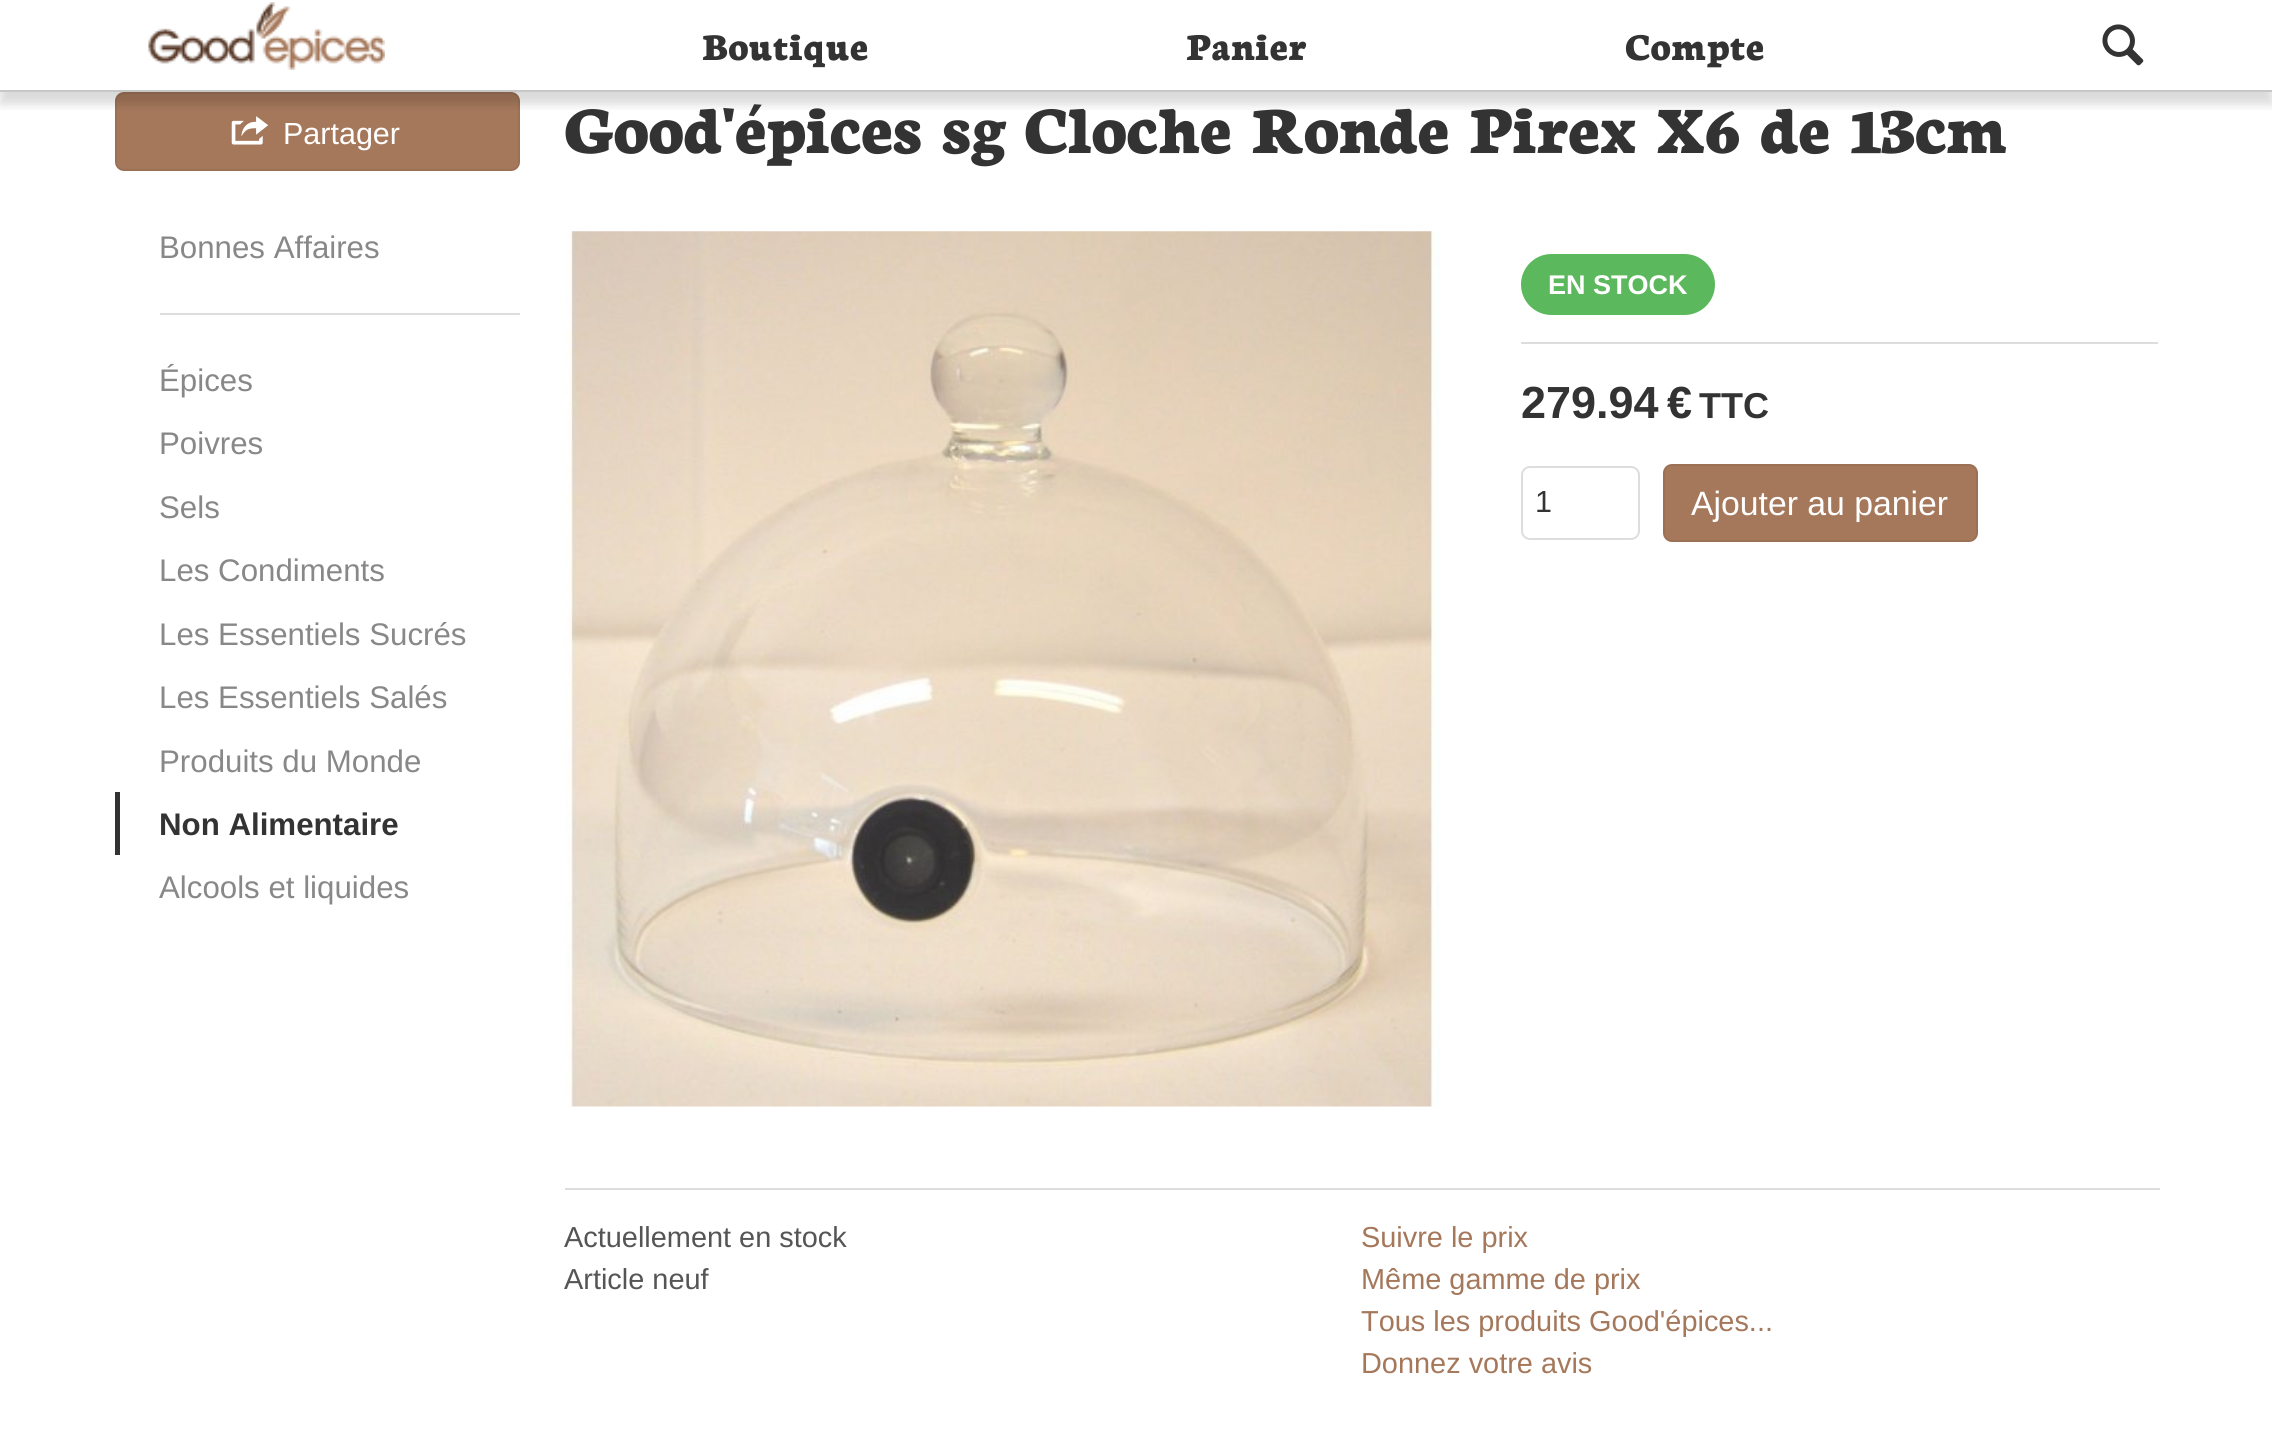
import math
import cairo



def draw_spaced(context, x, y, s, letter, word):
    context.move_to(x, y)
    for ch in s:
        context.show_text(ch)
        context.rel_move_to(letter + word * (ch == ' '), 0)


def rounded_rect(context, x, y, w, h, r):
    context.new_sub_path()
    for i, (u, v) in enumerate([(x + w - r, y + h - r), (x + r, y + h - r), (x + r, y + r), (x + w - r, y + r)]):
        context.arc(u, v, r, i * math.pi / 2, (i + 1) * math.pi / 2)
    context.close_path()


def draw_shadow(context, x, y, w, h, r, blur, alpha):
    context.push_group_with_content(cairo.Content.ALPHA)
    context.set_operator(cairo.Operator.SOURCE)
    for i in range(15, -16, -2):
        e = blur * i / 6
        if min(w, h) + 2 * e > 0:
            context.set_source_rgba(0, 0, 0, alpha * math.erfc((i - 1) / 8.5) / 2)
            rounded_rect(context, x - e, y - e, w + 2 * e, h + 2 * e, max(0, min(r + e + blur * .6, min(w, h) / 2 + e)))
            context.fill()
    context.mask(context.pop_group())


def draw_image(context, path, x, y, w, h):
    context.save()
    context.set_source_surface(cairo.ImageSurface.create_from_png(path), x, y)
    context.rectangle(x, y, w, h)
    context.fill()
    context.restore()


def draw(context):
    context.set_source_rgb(1, 1, 1)
    context.paint()
    context.set_source_rgb(165 / 255, 120 / 255, 91 / 255)
    rounded_rect(context, 116, 93, 403, 77, 8)
    context.fill_preserve()
    context.set_source_rgb(155 / 255, 113 / 255, 86 / 255)
    context.stroke()
    draw_image(context, "images/3.png", 231, 116, 38, 29)
    context.save()
    context.rectangle(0, 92, 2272, 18)
    context.clip()
    context.set_source_rgb(0, 0, 0)
    draw_shadow(context, 0, 11, 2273, 93, 0, 5.5, 0.15)
    context.restore()
    context.set_source_rgb(199 / 255, 199 / 255, 199 / 255)
    context.rectangle(0, 90, 2272, 2)
    context.fill()
    draw_image(context, "images/1.png", 148, 2, 237, 68)
    draw_image(context, "images/2.png", 2102, 24, 42, 42)
    context.set_source_rgb(221 / 255, 221 / 255, 221 / 255)
    context.rectangle(160, 313, 360, 2)
    context.fill()
    context.set_source_rgb(51 / 255, 51 / 255, 51 / 255)
    context.rectangle(115, 792, 5, 63)
    context.fill()
    draw_image(context, "images/4.png", 565, 231, 875, 876)
    context.set_source_rgb(92 / 255, 184 / 255, 92 / 255)
    rounded_rect(context, 1521, 254, 194, 61, 30.5)
    context.fill()
    context.set_source_rgb(221 / 255, 221 / 255, 221 / 255)
    context.rectangle(1521, 342, 637, 2)
    context.fill()
    rounded_rect(context, 1522, 467, 117, 72, 8)
    context.stroke()
    context.set_source_rgb(165 / 255, 120 / 255, 91 / 255)
    rounded_rect(context, 1664, 465, 313, 76, 8)
    context.fill_preserve()
    context.set_source_rgb(155 / 255, 113 / 255, 86 / 255)
    context.stroke()
    context.set_source_rgb(221 / 255, 221 / 255, 221 / 255)
    context.rectangle(565, 1188, 1595, 2)
    context.fill()
    context.select_font_face("Neuton ExtraBold")
    context.set_font_size(40.5)
    context.set_source_rgb(51 / 255, 51 / 255, 51 / 255)
    context.move_to(702, 60)
    context.show_text("Boutique")
    context.move_to(1186, 60)
    context.show_text("Panier")
    context.move_to(1625, 60)
    context.show_text("Compte")
    context.select_font_face("Liberation Sans")
    context.set_font_size(30.5)
    context.set_source_rgb(1, 1, 1)
    context.move_to(283, 144)
    context.show_text("Partager")
    context.set_font_size(31.25)
    context.set_source_rgb(136 / 255, 136 / 255, 136 / 255)
    context.move_to(159, 258)
    context.show_text("Bonnes Affaires")
    context.move_to(159, 391)
    context.show_text("Épices")
    context.move_to(159, 454)
    context.show_text("Poivres")
    context.move_to(159, 518)
    context.show_text("Sels")
    context.move_to(159, 581)
    context.show_text("Les Condiments")
    context.move_to(159, 645)
    context.show_text("Les Essentiels Sucrés")
    context.move_to(159, 708)
    context.show_text("Les Essentiels Salés")
    context.move_to(159, 772)
    context.show_text("Produits du Monde")
    context.select_font_face("Liberation Sans", cairo.FontSlant.NORMAL, cairo.FontWeight.BOLD)
    context.set_source_rgb(51 / 255, 51 / 255, 51 / 255)
    context.move_to(159, 835)
    context.show_text("Non Alimentaire")
    context.select_font_face("Liberation Sans")
    context.set_source_rgb(136 / 255, 136 / 255, 136 / 255)
    context.move_to(159, 898)
    context.show_text("Alcools et liquides")
    context.select_font_face("Neuton ExtraBold")
    context.set_font_size(70.9)
    context.set_source_rgb(51 / 255, 51 / 255, 51 / 255)
    draw_spaced(context, 564, 153, "Good'épices sg", -1.4, 0)
    draw_spaced(context, 1024, 153, "Cloche Ronde Pirex X6 de 13cm", -1.4, 0)
    context.select_font_face("Liberation Sans", cairo.FontSlant.NORMAL, cairo.FontWeight.BOLD)
    context.set_font_size(27)
    context.set_source_rgb(1, 1, 1)
    context.move_to(1548, 294)
    context.show_text("EN STOCK")
    context.set_font_size(45)
    context.set_source_rgb(51 / 255, 51 / 255, 51 / 255)
    context.move_to(1521, 418)
    context.show_text("279.94")
    context.move_to(1667, 418)
    context.show_text("€")
    context.set_font_size(36)
    context.move_to(1699, 418)
    context.show_text("TTC")
    context.select_font_face("Liberation Sans")
    context.set_font_size(30.5)
    context.move_to(1535, 512)
    context.show_text("1")
    context.set_font_size(33.75)
    context.set_source_rgb(1, 1, 1)
    context.move_to(1691, 515)
    context.show_text("Ajouter au panier")
    context.set_font_size(28.9)
    context.set_source_rgb(85 / 255, 85 / 255, 85 / 255)
    context.move_to(564, 1247)
    context.show_text("Actuellement en stock")
    context.move_to(564, 1289)
    context.show_text("Article neuf")
    context.set_source_rgb(165 / 255, 120 / 255, 91 / 255)
    context.move_to(1361, 1247)
    context.show_text("Suivre le prix")
    context.move_to(1361, 1289)
    context.show_text("Même gamme de prix")
    context.move_to(1361, 1331)
    context.show_text("Tous les produits Good'épices...")
    context.move_to(1361, 1373)
    context.show_text("Donnez votre avis")


surface = cairo.ImageSurface(cairo.Format.RGB24, 2272, 1454)
context = cairo.Context(surface)
options = cairo.FontOptions()
options.set_hint_metrics(cairo.HintMetrics.OFF)
options.set_hint_style(cairo.HintStyle.NONE)
context.set_font_options(options)
context.set_miter_limit(4)
draw(context)
surface.write_to_png("out.png")
